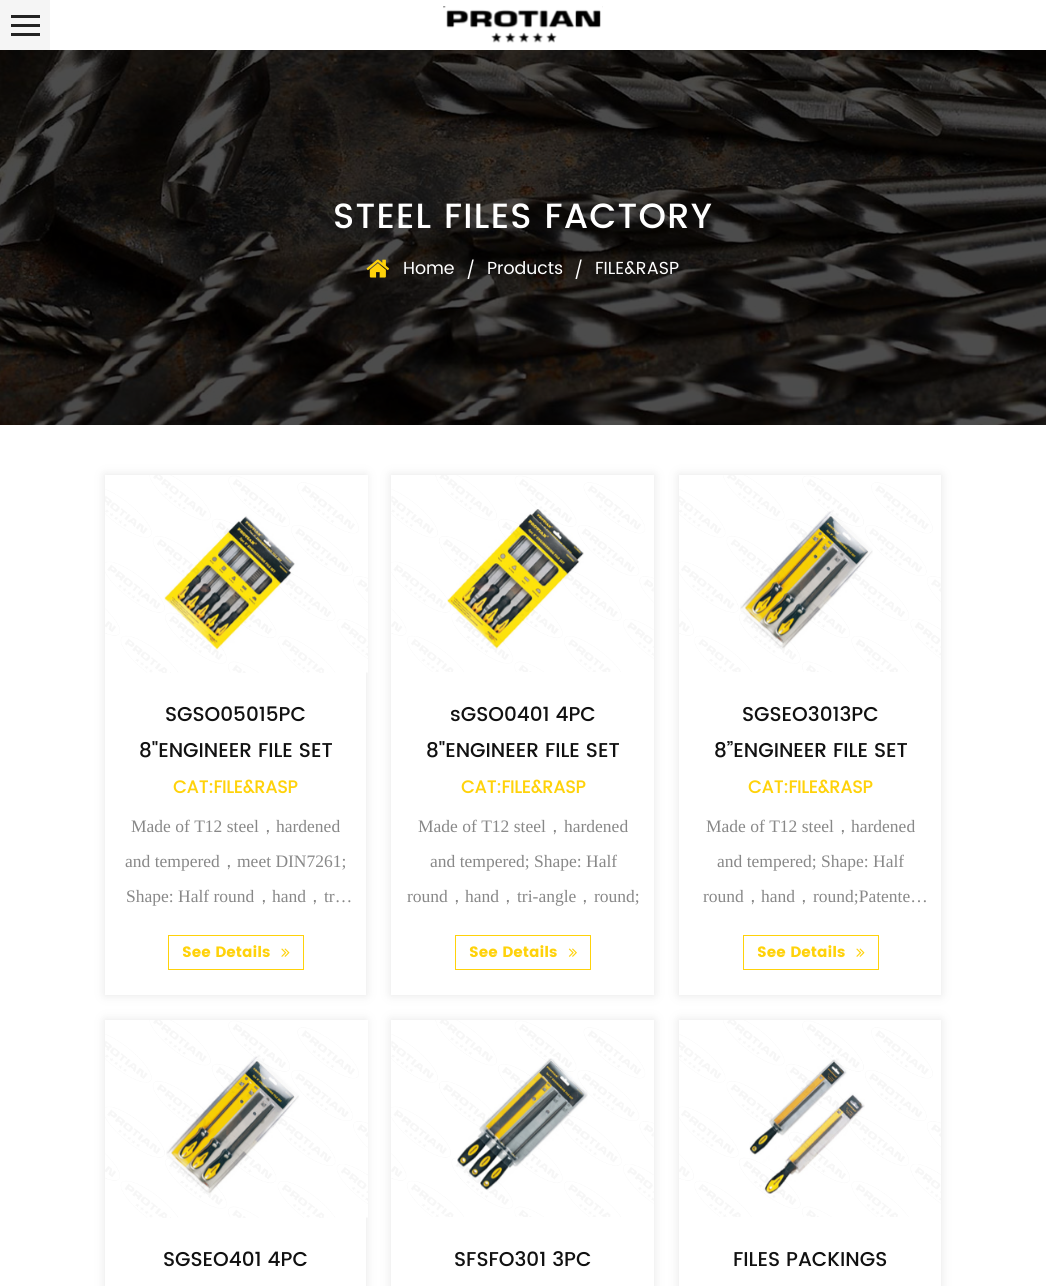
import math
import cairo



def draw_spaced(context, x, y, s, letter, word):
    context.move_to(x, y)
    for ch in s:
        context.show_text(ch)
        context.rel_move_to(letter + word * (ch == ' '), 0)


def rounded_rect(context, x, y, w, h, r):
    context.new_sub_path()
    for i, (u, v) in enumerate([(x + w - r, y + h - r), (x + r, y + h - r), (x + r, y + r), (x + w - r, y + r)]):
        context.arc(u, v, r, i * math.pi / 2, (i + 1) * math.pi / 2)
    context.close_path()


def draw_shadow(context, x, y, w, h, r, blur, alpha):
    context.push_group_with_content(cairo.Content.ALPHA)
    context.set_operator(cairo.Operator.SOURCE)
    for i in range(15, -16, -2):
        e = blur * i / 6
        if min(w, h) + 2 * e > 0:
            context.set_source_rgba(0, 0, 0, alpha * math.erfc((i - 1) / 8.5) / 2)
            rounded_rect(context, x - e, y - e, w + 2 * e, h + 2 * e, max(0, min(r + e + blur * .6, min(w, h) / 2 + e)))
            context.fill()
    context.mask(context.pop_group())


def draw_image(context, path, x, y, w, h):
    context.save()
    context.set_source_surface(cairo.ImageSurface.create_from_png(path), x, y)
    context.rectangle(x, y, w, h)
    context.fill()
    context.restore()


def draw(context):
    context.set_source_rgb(1, 1, 1)
    context.paint()
    context.set_source_rgb(245 / 255, 245 / 255, 245 / 255)
    context.rectangle(0, 0, 50, 50)
    context.fill()
    context.set_source_rgb(34 / 255, 34 / 255, 34 / 255)
    context.rectangle(11, 15, 29, 3)
    context.fill()
    context.rectangle(11, 24, 29, 3)
    context.fill()
    context.rectangle(11, 33, 29, 3)
    context.fill()
    draw_image(context, "images/1.png", 443, 6, 160, 37)
    draw_image(context, "images/2.png", 0, 50, 1046, 375)
    draw_image(context, "images/3.png", 366, 259, 24, 19)
    context.save()
    context.set_fill_rule(cairo.FillRule.EVEN_ODD)
    context.new_path()
    context.move_to(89, 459)
    context.line_to(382, 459)
    context.line_to(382, 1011)
    context.line_to(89, 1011)
    context.close_path()
    context.move_to(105, 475)
    context.line_to(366, 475)
    context.line_to(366, 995)
    context.line_to(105, 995)
    context.close_path()
    context.clip()
    context.set_source_rgb(125 / 255, 125 / 255, 125 / 255)
    draw_shadow(context, 105, 475, 261, 520, 0, 5, 0.2)
    context.restore()
    draw_image(context, "images/5.png", 164, 475, 204, 198)
    draw_image(context, "images/4.png", 105, 475, 263, 198)
    context.rectangle(168.5, 935.5, 135, 34)
    context.set_source_rgb(1, 210 / 255, 10 / 255)
    context.set_line_width(1)
    context.stroke()
    draw_image(context, "images/6.png", 281, 948, 9, 9)
    context.set_source_rgb(125 / 255, 125 / 255, 125 / 255)
    draw_shadow(context, 391, 475, 263, 520, 0, 5, 0.2)
    context.set_source_rgb(1, 1, 1)
    context.rectangle(391, 475, 263, 520)
    context.fill()
    draw_image(context, "images/8.png", 447, 509, 137, 140)
    draw_image(context, "images/7.png", 391, 475, 263, 197)
    context.rectangle(455.5, 935.5, 135, 34)
    context.set_source_rgb(1, 210 / 255, 10 / 255)
    context.stroke()
    draw_image(context, "images/9.png", 568, 948, 9, 9)
    context.save()
    context.set_fill_rule(cairo.FillRule.EVEN_ODD)
    context.new_path()
    context.move_to(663, 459)
    context.line_to(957, 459)
    context.line_to(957, 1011)
    context.line_to(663, 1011)
    context.close_path()
    context.move_to(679, 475)
    context.line_to(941, 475)
    context.line_to(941, 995)
    context.line_to(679, 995)
    context.close_path()
    context.clip()
    context.set_source_rgb(125 / 255, 125 / 255, 125 / 255)
    draw_shadow(context, 679, 475, 262, 520, 0, 5, 0.2)
    context.restore()
    draw_image(context, "images/11.png", 740, 511, 133, 138)
    draw_image(context, "images/10.png", 679, 475, 262, 197)
    context.rectangle(743.5, 935.5, 135, 34)
    context.stroke()
    draw_image(context, "images/6.png", 856, 948, 9, 9)
    context.save()
    context.set_fill_rule(cairo.FillRule.EVEN_ODD)
    context.new_path()
    context.move_to(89, 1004)
    context.line_to(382, 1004)
    context.line_to(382, 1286)
    context.line_to(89, 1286)
    context.close_path()
    context.move_to(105, 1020)
    context.line_to(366, 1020)
    context.line_to(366, 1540)
    context.line_to(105, 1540)
    context.close_path()
    context.clip()
    context.set_source_rgb(125 / 255, 125 / 255, 125 / 255)
    draw_shadow(context, 105, 1020, 261, 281, 0, 5, 0.2)
    context.restore()
    draw_image(context, "images/13.png", 166, 1020, 202, 198)
    draw_image(context, "images/12.png", 105, 1020, 263, 198)
    context.set_source_rgb(125 / 255, 125 / 255, 125 / 255)
    draw_shadow(context, 391, 1020, 263, 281, 0, 5, 0.2)
    context.set_source_rgb(1, 1, 1)
    context.rectangle(391, 1020, 263, 266)
    context.fill()
    draw_image(context, "images/15.png", 457, 1058, 131, 132)
    draw_image(context, "images/14.png", 391, 1020, 263, 197)
    context.save()
    context.set_fill_rule(cairo.FillRule.EVEN_ODD)
    context.new_path()
    context.move_to(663, 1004)
    context.line_to(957, 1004)
    context.line_to(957, 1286)
    context.line_to(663, 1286)
    context.close_path()
    context.move_to(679, 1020)
    context.line_to(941, 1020)
    context.line_to(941, 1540)
    context.line_to(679, 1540)
    context.close_path()
    context.clip()
    context.set_source_rgb(125 / 255, 125 / 255, 125 / 255)
    draw_shadow(context, 679, 1020, 262, 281, 0, 5, 0.2)
    context.restore()
    draw_image(context, "images/17.png", 749, 1059, 116, 135)
    draw_image(context, "images/16.png", 679, 1020, 262, 197)
    context.select_font_face("Poppins Medium")
    context.set_font_size(35)
    draw_spaced(context, 333, 228, "STEEL FILES FACTORY", 1.25, 0)
    context.select_font_face("Poppins")
    context.set_font_size(17.5)
    context.move_to(403, 274)
    context.show_text("Home")
    context.move_to(466, 276)
    context.show_text("/")
    context.move_to(487, 274)
    context.show_text("Products")
    context.move_to(574, 276)
    context.show_text("/")
    context.move_to(595, 274)
    context.show_text("FILE&RASP")
    context.select_font_face("Poppins Medium")
    context.set_font_size(20)
    context.set_source_rgb(17 / 255, 17 / 255, 17 / 255)
    context.move_to(165, 721)
    context.show_text("SGSO05015PC")
    context.move_to(139, 757)
    context.show_text("8\"ENGINEER FILE SET")
    context.select_font_face("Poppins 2", cairo.FontSlant.NORMAL, cairo.FontWeight.BOLD)
    context.set_font_size(17.5)
    context.set_source_rgb(1, 210 / 255, 10 / 255)
    context.move_to(173, 793)
    context.show_text("CAT:FILE&RASP")
    context.select_font_face("Liberation Serif")
    context.set_source_rgb(136 / 255, 136 / 255, 136 / 255)
    context.move_to(131, 832)
    context.show_text("Made of T12 steel")
    context.select_font_face("WenQuanYi Zen Hei Medium")
    context.move_to(259, 832)
    context.show_text("，")
    context.select_font_face("Liberation Serif")
    context.move_to(276, 832)
    context.show_text("hardened")
    context.move_to(125, 867)
    context.show_text("and tempered")
    context.select_font_face("WenQuanYi Zen Hei Medium")
    context.move_to(220, 867)
    context.show_text("，")
    context.select_font_face("Liberation Serif")
    context.move_to(237, 867)
    context.show_text("meet DIN7261;")
    context.move_to(126, 902)
    context.show_text("Shape: Half round")
    context.select_font_face("WenQuanYi Zen Hei Medium")
    context.move_to(255, 902)
    context.show_text("，")
    context.select_font_face("Liberation Serif")
    context.move_to(272, 902)
    context.show_text("hand")
    context.select_font_face("WenQuanYi Zen Hei Medium")
    context.move_to(306, 902)
    context.show_text("，")
    context.select_font_face("Liberation Serif")
    context.move_to(324, 902)
    context.show_text("tr…")
    context.select_font_face("Poppins", cairo.FontSlant.NORMAL, cairo.FontWeight.BOLD)
    context.set_font_size(15)
    context.set_source_rgb(1, 210 / 255, 10 / 255)
    context.move_to(182, 957)
    context.show_text("See Details")
    context.select_font_face("Poppins Medium")
    context.set_font_size(20)
    context.set_source_rgb(17 / 255, 17 / 255, 17 / 255)
    context.move_to(450, 721)
    context.show_text("sGSO0401 4PC")
    context.move_to(426, 757)
    context.show_text("8\"ENGINEER FILE SET")
    context.select_font_face("Poppins 2", cairo.FontSlant.NORMAL, cairo.FontWeight.BOLD)
    context.set_font_size(17.5)
    context.set_source_rgb(1, 210 / 255, 10 / 255)
    context.move_to(461, 793)
    context.show_text("CAT:FILE&RASP")
    context.select_font_face("Liberation Serif")
    context.set_source_rgb(136 / 255, 136 / 255, 136 / 255)
    context.move_to(418, 832)
    context.show_text("Made of T12 steel")
    context.select_font_face("WenQuanYi Zen Hei Medium")
    context.move_to(546, 832)
    context.show_text("，")
    context.select_font_face("Liberation Serif")
    context.move_to(564, 832)
    context.show_text("hardened")
    context.move_to(430, 867)
    context.show_text("and tempered; Shape: Half")
    context.move_to(407, 902)
    context.show_text("round")
    context.select_font_face("WenQuanYi Zen Hei Medium")
    context.move_to(448, 902)
    context.show_text("，")
    context.select_font_face("Liberation Serif")
    context.move_to(465, 902)
    context.show_text("hand")
    context.select_font_face("WenQuanYi Zen Hei Medium")
    context.move_to(499, 902)
    context.show_text("，")
    context.select_font_face("Liberation Serif")
    context.move_to(517, 902)
    context.show_text("tri-angle")
    context.select_font_face("WenQuanYi Zen Hei Medium")
    context.move_to(576, 902)
    context.show_text("，")
    context.select_font_face("Liberation Serif")
    context.move_to(594, 902)
    context.show_text("round;")
    context.select_font_face("Poppins", cairo.FontSlant.NORMAL, cairo.FontWeight.BOLD)
    context.set_font_size(15)
    context.set_source_rgb(1, 210 / 255, 10 / 255)
    context.move_to(469, 957)
    context.show_text("See Details")
    context.select_font_face("Poppins Medium")
    context.set_font_size(20)
    context.set_source_rgb(17 / 255, 17 / 255, 17 / 255)
    context.move_to(742, 721)
    context.show_text("SGSEO3013PC")
    context.move_to(714, 757)
    context.show_text("8”ENGINEER FILE SET")
    context.select_font_face("Poppins 2", cairo.FontSlant.NORMAL, cairo.FontWeight.BOLD)
    context.set_font_size(17.5)
    context.set_source_rgb(1, 210 / 255, 10 / 255)
    context.move_to(748, 793)
    context.show_text("CAT:FILE&RASP")
    context.select_font_face("Liberation Serif")
    context.set_source_rgb(136 / 255, 136 / 255, 136 / 255)
    context.move_to(706, 832)
    context.show_text("Made of T12 steel")
    context.select_font_face("WenQuanYi Zen Hei Medium")
    context.move_to(834, 832)
    context.show_text("，")
    context.select_font_face("Liberation Serif")
    context.move_to(851, 832)
    context.show_text("hardened")
    context.move_to(717, 867)
    context.show_text("and tempered; Shape: Half")
    context.move_to(703, 902)
    context.show_text("round")
    context.select_font_face("WenQuanYi Zen Hei Medium")
    context.move_to(744, 902)
    context.show_text("，")
    context.select_font_face("Liberation Serif")
    context.move_to(761, 902)
    context.show_text("hand")
    context.select_font_face("WenQuanYi Zen Hei Medium")
    context.move_to(795, 902)
    context.show_text("，")
    context.select_font_face("Liberation Serif")
    context.move_to(813, 902)
    context.show_text("round;Patente…")
    context.select_font_face("Poppins", cairo.FontSlant.NORMAL, cairo.FontWeight.BOLD)
    context.set_font_size(15)
    context.set_source_rgb(1, 210 / 255, 10 / 255)
    context.move_to(757, 957)
    context.show_text("See Details")
    context.select_font_face("Poppins Medium")
    context.set_font_size(20)
    context.set_source_rgb(17 / 255, 17 / 255, 17 / 255)
    context.move_to(163, 1266)
    context.show_text("SGSEO401 4PC")
    context.move_to(454, 1266)
    context.show_text("SFSFO301 3PC")
    context.move_to(733, 1266)
    context.show_text("FILES PACKINGS")


surface = cairo.ImageSurface(cairo.Format.RGB24, 1046, 1286)
context = cairo.Context(surface)
options = cairo.FontOptions()
options.set_hint_metrics(cairo.HintMetrics.OFF)
options.set_hint_style(cairo.HintStyle.NONE)
context.set_font_options(options)
context.set_miter_limit(4)
draw(context)
surface.write_to_png("out.png")
